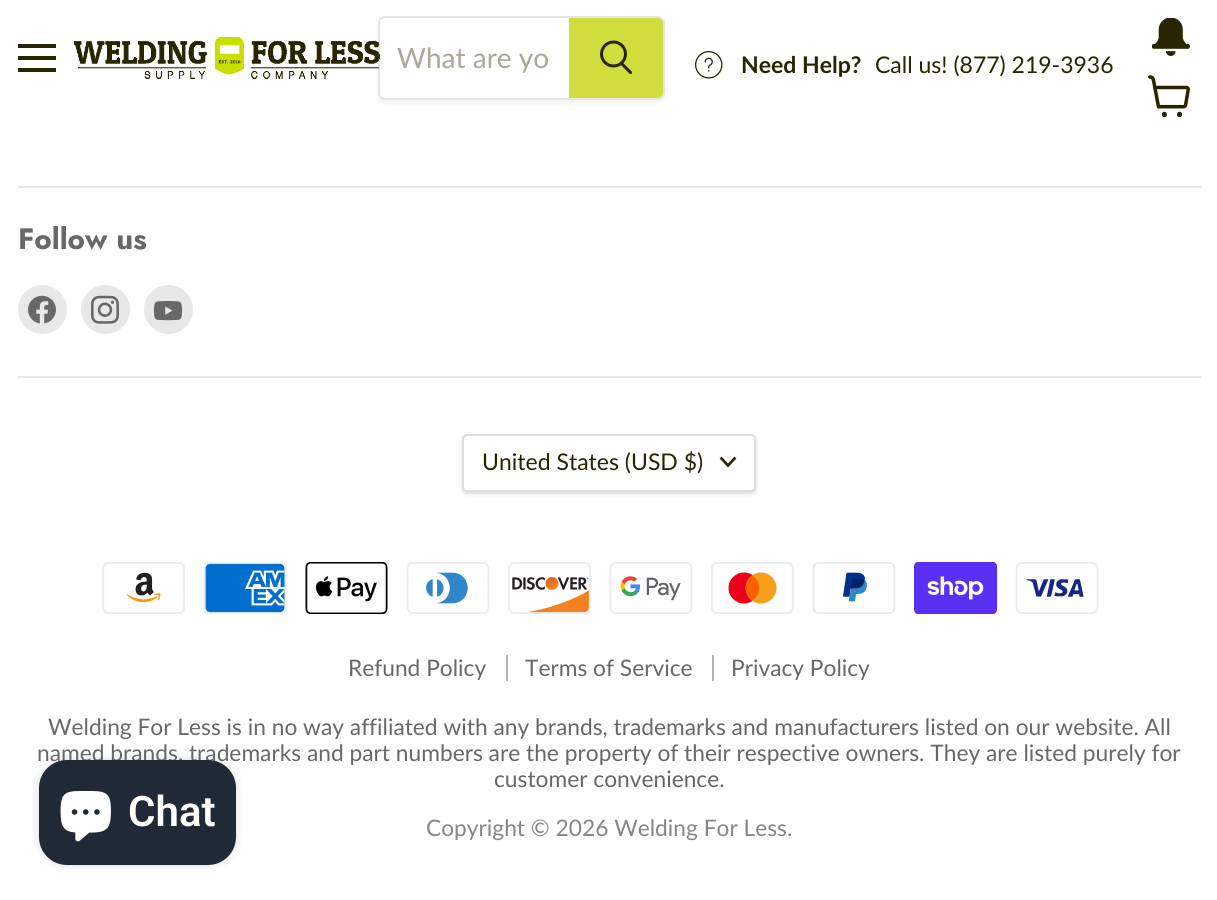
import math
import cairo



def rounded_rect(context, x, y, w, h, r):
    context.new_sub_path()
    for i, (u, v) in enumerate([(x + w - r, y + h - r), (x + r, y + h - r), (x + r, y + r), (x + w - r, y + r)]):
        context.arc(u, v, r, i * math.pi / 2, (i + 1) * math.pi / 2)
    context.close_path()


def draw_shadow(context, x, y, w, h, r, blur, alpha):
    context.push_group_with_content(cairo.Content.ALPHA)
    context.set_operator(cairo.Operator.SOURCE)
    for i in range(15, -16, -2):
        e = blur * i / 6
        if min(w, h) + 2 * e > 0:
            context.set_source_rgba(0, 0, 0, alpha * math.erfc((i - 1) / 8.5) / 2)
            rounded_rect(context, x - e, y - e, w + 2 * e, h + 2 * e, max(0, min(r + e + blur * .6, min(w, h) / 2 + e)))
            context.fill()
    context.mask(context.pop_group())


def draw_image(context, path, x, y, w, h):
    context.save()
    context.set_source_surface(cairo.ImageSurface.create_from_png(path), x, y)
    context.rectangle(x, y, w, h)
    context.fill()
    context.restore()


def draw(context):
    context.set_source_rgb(1, 1, 1)
    context.paint()
    context.set_source_rgb(39 / 255, 38 / 255, 0)
    context.rectangle(18, 44, 38, 4)
    context.fill()
    context.rectangle(18, 56, 38, 4)
    context.fill()
    context.rectangle(18, 68, 38, 4)
    context.fill()
    draw_image(context, "images/1.png", 74, 37, 306, 42)
    context.save()
    context.set_fill_rule(cairo.FillRule.EVEN_ODD)
    context.new_path()
    context.move_to(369, 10)
    context.line_to(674, 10)
    context.line_to(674, 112)
    context.line_to(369, 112)
    context.close_path()
    context.move_to(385, 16)
    context.line_to(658, 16)
    context.curve_to(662, 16, 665, 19, 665, 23)
    context.line_to(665, 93)
    context.curve_to(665, 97, 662, 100, 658, 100)
    context.line_to(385, 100)
    context.curve_to(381, 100, 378, 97, 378, 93)
    context.line_to(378, 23)
    context.curve_to(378, 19, 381, 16, 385, 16)
    context.close_path()
    context.clip()
    context.set_source_rgb(128 / 255, 128 / 255, 128 / 255)
    draw_shadow(context, 378, 19, 287, 84, 7, 2.5, 0.11)
    context.restore()
    rounded_rect(context, 379, 17, 285, 82, 6)
    context.set_source_rgba(128 / 255, 128 / 255, 128 / 255, 0.2)
    context.stroke()
    context.set_source_rgb(1, 1, 1)
    context.new_path()
    context.move_to(385, 18)
    context.line_to(569, 18)
    context.line_to(569, 98)
    context.line_to(385, 98)
    context.curve_to(382, 98, 380, 96, 380, 93)
    context.line_to(380, 23)
    context.curve_to(380, 20, 382, 18, 385, 18)
    context.close_path()
    context.fill()
    context.set_source_rgb(208 / 255, 221 / 255, 60 / 255)
    context.new_path()
    context.move_to(570, 19)
    context.line_to(658, 19)
    context.curve_to(660, 19, 662, 21, 662, 23)
    context.line_to(662, 93)
    context.curve_to(662, 95, 660, 97, 658, 97)
    context.line_to(570, 97)
    context.close_path()
    context.fill_preserve()
    context.stroke()
    context.new_path()
    context.move_to(630.5, 72.5)
    context.line_to(622, 64)
    context.set_source_rgb(39 / 255, 38 / 255, 0)
    context.set_line_width(3)
    context.set_line_cap(cairo.LineCap.ROUND)
    context.stroke()
    context.arc(613.5, 54, 12, 0, 2 * math.pi)
    context.set_line_cap(cairo.LineCap.BUTT)
    context.stroke()
    draw_image(context, "images/2.png", 695, 51, 28, 28)
    draw_image(context, "images/3.png", 1152, 18, 38, 38)
    draw_image(context, "images/4.png", 1148, 75, 42, 42)
    context.set_source_rgb(232 / 255, 232 / 255, 232 / 255)
    context.rectangle(18, 186, 1183, 2)
    context.fill()
    context.rectangle(18, 376, 1183, 2)
    context.fill()
    context.arc(42.5, 309.5, 24.5, 0, 2 * math.pi)
    context.fill()
    draw_image(context, "images/5.png", 28, 295, 28, 29)
    context.arc(105.5, 309.5, 24.5, 0, 2 * math.pi)
    context.fill()
    draw_image(context, "images/6.png", 91, 295, 28, 29)
    context.arc(168.5, 309.5, 24.5, 0, 2 * math.pi)
    context.fill()
    draw_image(context, "images/7.png", 154, 301, 28, 20)
    context.set_source_rgb(0, 0, 0)
    draw_shadow(context, 462, 436, 294, 58, 5, 2, 0.15)
    context.set_source_rgb(1, 1, 1)
    rounded_rect(context, 463, 435, 292, 56, 4)
    context.fill_preserve()
    context.set_source_rgb(221 / 255, 221 / 255, 221 / 255)
    context.set_line_width(2)
    context.stroke()
    context.new_path()
    context.move_to(728, 465.5)
    context.line_to(734.5, 458.5)
    context.move_to(728, 465.5)
    context.line_to(721.5, 458.5)
    context.set_source_rgb(39 / 255, 38 / 255, 0)
    context.set_line_width(2.7)
    context.set_line_cap(cairo.LineCap.SQUARE)
    context.stroke()
    draw_image(context, "images/8.png", 102, 562, 83, 52)
    draw_image(context, "images/9.png", 203, 562, 84, 52)
    draw_image(context, "images/10.png", 305, 562, 83, 52)
    draw_image(context, "images/11.png", 406, 562, 84, 52)
    draw_image(context, "images/12.png", 508, 562, 83, 52)
    draw_image(context, "images/13.png", 609, 562, 84, 52)
    draw_image(context, "images/14.png", 711, 562, 83, 52)
    draw_image(context, "images/15.png", 812, 562, 84, 52)
    draw_image(context, "images/16.png", 914, 562, 84, 52)
    draw_image(context, "images/17.png", 1015, 562, 84, 52)
    context.set_source_rgb(180 / 255, 180 / 255, 180 / 255)
    context.rectangle(506, 655, 2, 26)
    context.fill()
    context.rectangle(712, 655, 2, 26)
    context.fill()
    context.set_source_rgb(0, 0, 0)
    draw_shadow(context, 39, 760, 197, 105, 28, 4.5, 0.15)
    context.select_font_face("Lato")
    context.set_font_size(28)
    context.set_source_rgb(169 / 255, 168 / 255, 153 / 255)
    context.move_to(397, 68)
    context.show_text("What are yo")
    context.select_font_face("Lato", cairo.FontSlant.NORMAL, cairo.FontWeight.BOLD)
    context.set_font_size(23)
    context.set_source_rgb(39 / 255, 38 / 255, 0)
    context.move_to(741, 73)
    context.show_text("Need Help?")
    context.select_font_face("Lato")
    context.move_to(875, 73)
    context.show_text("Call us! (877) 219-3936")
    context.select_font_face("Jost", cairo.FontSlant.NORMAL, cairo.FontWeight.BOLD)
    context.set_font_size(29.5)
    context.set_source_rgb(104 / 255, 104 / 255, 104 / 255)
    context.move_to(18, 249)
    context.show_text("Follow us")
    context.select_font_face("Lato")
    context.set_font_size(23)
    context.set_source_rgb(39 / 255, 38 / 255, 0)
    context.move_to(482, 470)
    context.show_text("United States (USD $)")
    context.set_font_size(22.75)
    context.set_source_rgb(104 / 255, 104 / 255, 104 / 255)
    context.move_to(348, 676)
    context.show_text("Refund Policy")
    context.move_to(525, 676)
    context.show_text("Terms of Service")
    context.move_to(731, 676)
    context.show_text("Privacy Policy")
    context.move_to(48, 735)
    context.show_text("Welding For Less is in no way affiliated with any brands, trademarks and manufacturers listed on our website. All")
    context.move_to(37, 761)
    context.show_text("named brands, trademarks and part numbers are the property of their respective owners. They are listed purely for")
    context.move_to(494, 787)
    context.show_text("customer convenience.")
    context.set_source_rgb(134 / 255, 134 / 255, 134 / 255)
    context.move_to(426, 836)
    context.show_text("Copyright © 2026 Welding For Less.")
    context.set_source_rgb(32 / 255, 42 / 255, 54 / 255)
    rounded_rect(context, 39, 760, 197, 105, 28)
    context.fill()
    draw_image(context, "images/18.png", 60, 791, 51, 51)
    context.select_font_face("Roboto SemiBold")
    context.set_font_size(42)
    context.set_source_rgb(1, 1, 1)
    context.move_to(128, 826)
    context.show_text("Chat")


surface = cairo.ImageSurface(cairo.Format.RGB24, 1217, 900)
context = cairo.Context(surface)
options = cairo.FontOptions()
options.set_hint_metrics(cairo.HintMetrics.OFF)
options.set_hint_style(cairo.HintStyle.NONE)
context.set_font_options(options)
context.set_miter_limit(4)
draw(context)
surface.write_to_png("out.png")
